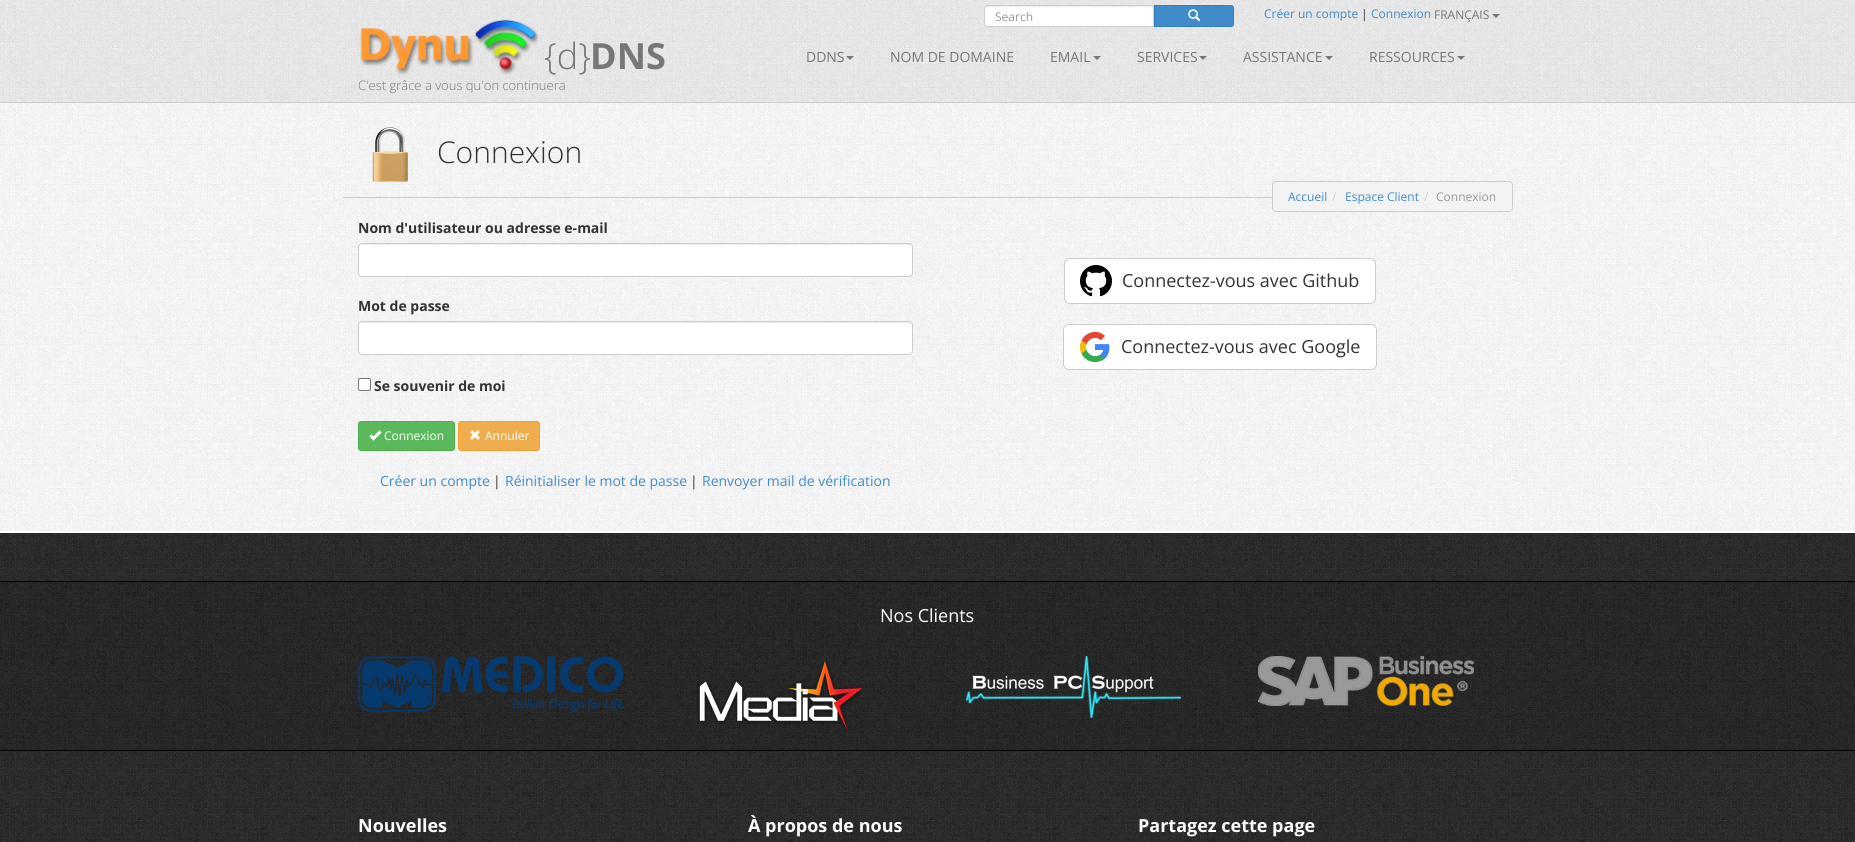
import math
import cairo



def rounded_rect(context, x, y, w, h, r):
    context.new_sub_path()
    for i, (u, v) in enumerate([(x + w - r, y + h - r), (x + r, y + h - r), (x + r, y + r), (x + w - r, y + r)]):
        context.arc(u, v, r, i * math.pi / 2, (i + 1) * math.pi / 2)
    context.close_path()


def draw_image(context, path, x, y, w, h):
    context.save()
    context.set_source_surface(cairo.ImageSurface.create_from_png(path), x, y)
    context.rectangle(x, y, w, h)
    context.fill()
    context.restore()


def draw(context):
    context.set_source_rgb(1, 1, 1)
    context.paint()
    draw_image(context, "images/1.png", 0, 0, 1855, 102)
    context.set_source_rgb(204 / 255, 204 / 255, 204 / 255)
    context.rectangle(0, 102, 1855, 1)
    context.fill()
    context.set_source_rgb(1, 1, 1)
    context.new_path()
    context.move_to(988, 5)
    context.line_to(1154, 5)
    context.line_to(1154, 27)
    context.line_to(988, 27)
    context.curve_to(986, 27, 984, 25, 984, 23)
    context.line_to(984, 9)
    context.curve_to(984, 7, 986, 5, 988, 5)
    context.close_path()
    context.fill()
    context.set_source_rgb(236 / 255, 236 / 255, 236 / 255)
    context.new_path()
    context.move_to(988, 7)
    context.line_to(1153, 7)
    context.line_to(1153, 6)
    context.line_to(987, 6)
    context.curve_to(985, 6, 985, 8, 985, 10)
    context.curve_to(985, 8, 986, 7, 988, 7)
    context.close_path()
    context.fill()
    context.new_path()
    context.move_to(988, 5.5)
    context.line_to(1153.5, 5.5)
    context.line_to(1153.5, 26.5)
    context.line_to(988, 26.5)
    context.curve_to(986, 26.5, 984.5, 25, 984.5, 23)
    context.line_to(984.5, 9)
    context.curve_to(984.5, 7, 986, 5.5, 988, 5.5)
    context.close_path()
    context.set_source_rgb(204 / 255, 204 / 255, 204 / 255)
    context.set_line_width(1)
    context.stroke()
    context.set_source_rgb(66 / 255, 139 / 255, 202 / 255)
    context.new_path()
    context.move_to(1154.5, 5.5)
    context.line_to(1231, 5.5)
    context.curve_to(1232.5, 5.5, 1233.5, 6.5, 1233.5, 8)
    context.line_to(1233.5, 24)
    context.curve_to(1233.5, 25.5, 1232.5, 26.5, 1231, 26.5)
    context.line_to(1154.5, 26.5)
    context.close_path()
    context.fill_preserve()
    context.set_source_rgb(53 / 255, 126 / 255, 189 / 255)
    context.stroke()
    draw_image(context, "images/2.png", 1188, 9, 13, 13)
    context.set_source_rgb(119 / 255, 119 / 255, 119 / 255)
    context.new_path()
    context.move_to(1492, 14)
    context.line_to(1500, 14)
    context.line_to(1496, 18)
    context.close_path()
    context.fill()
    draw_image(context, "images/3.png", 360, 19, 178, 56)
    context.new_path()
    context.move_to(846, 56)
    context.line_to(854, 56)
    context.line_to(850, 60)
    context.close_path()
    context.fill()
    context.new_path()
    context.move_to(1093, 56)
    context.line_to(1101, 56)
    context.line_to(1097, 60)
    context.close_path()
    context.fill()
    context.new_path()
    context.move_to(1199, 56)
    context.line_to(1207, 56)
    context.line_to(1203, 60)
    context.close_path()
    context.fill()
    context.new_path()
    context.move_to(1325, 56)
    context.line_to(1333, 56)
    context.line_to(1329, 60)
    context.close_path()
    context.fill()
    context.new_path()
    context.move_to(1457, 56)
    context.line_to(1465, 56)
    context.line_to(1461, 60)
    context.close_path()
    context.fill()
    draw_image(context, "images/4.png", 0, 103, 1855, 428)
    context.set_source_rgb(204 / 255, 204 / 255, 204 / 255)
    context.rectangle(343, 197, 929, 1)
    context.fill()
    draw_image(context, "images/5.png", 372, 127, 36, 55)
    context.set_source_rgb(243 / 255, 243 / 255, 243 / 255)
    rounded_rect(context, 1272.5, 181.5, 240, 30, 3.5)
    context.fill_preserve()
    context.set_source_rgb(204 / 255, 204 / 255, 204 / 255)
    context.stroke()
    context.set_source_rgb(1, 1, 1)
    rounded_rect(context, 358, 243, 555, 34, 4)
    context.fill()
    context.set_source_rgb(236 / 255, 236 / 255, 236 / 255)
    context.new_path()
    context.move_to(362, 245)
    context.line_to(909, 245)
    context.curve_to(911, 245, 912, 246, 912, 248)
    context.curve_to(912, 246, 911, 244, 909, 244)
    context.line_to(362, 244)
    context.line_to(360, 245)
    context.line_to(359, 246)
    context.line_to(359, 248)
    context.curve_to(359, 246, 360, 245, 362, 245)
    context.close_path()
    context.fill()
    rounded_rect(context, 358.5, 243.5, 554, 33, 3.5)
    context.set_source_rgb(204 / 255, 204 / 255, 204 / 255)
    context.stroke()
    context.set_source_rgb(1, 1, 1)
    rounded_rect(context, 358, 321, 555, 34, 4)
    context.fill()
    context.set_source_rgb(236 / 255, 236 / 255, 236 / 255)
    context.new_path()
    context.move_to(362, 323)
    context.line_to(909, 323)
    context.curve_to(911, 323, 912, 324, 912, 326)
    context.curve_to(912, 324, 911, 322, 909, 322)
    context.line_to(362, 322)
    context.line_to(360, 323)
    context.line_to(359, 324)
    context.line_to(359, 326)
    context.curve_to(359, 324, 360, 323, 362, 323)
    context.close_path()
    context.fill()
    rounded_rect(context, 358.5, 321.5, 554, 33, 3.5)
    context.set_source_rgb(204 / 255, 204 / 255, 204 / 255)
    context.stroke()
    context.set_source_rgb(1, 1, 1)
    rounded_rect(context, 358.5, 378.5, 12, 12, 1.5)
    context.fill_preserve()
    context.set_source_rgb(118 / 255, 118 / 255, 118 / 255)
    context.stroke()
    context.set_source_rgb(92 / 255, 184 / 255, 92 / 255)
    rounded_rect(context, 358.5, 421.5, 96, 29, 2.5)
    context.fill_preserve()
    context.set_source_rgb(76 / 255, 174 / 255, 76 / 255)
    context.stroke()
    draw_image(context, "images/6.png", 369, 430, 13, 11)
    context.set_source_rgb(240 / 255, 173 / 255, 78 / 255)
    rounded_rect(context, 458.5, 421.5, 81, 29, 2.5)
    context.fill_preserve()
    context.set_source_rgb(238 / 255, 162 / 255, 54 / 255)
    context.stroke()
    draw_image(context, "images/7.png", 470, 430, 10, 10)
    context.set_source_rgb(1, 1, 1)
    rounded_rect(context, 1064, 258, 312, 46, 6)
    context.fill()
    draw_image(context, "images/8.png", 1080, 265, 32, 32)
    rounded_rect(context, 1064.5, 258.5, 311, 45, 5.5)
    context.set_source_rgb(204 / 255, 204 / 255, 204 / 255)
    context.stroke()
    context.set_source_rgb(1, 1, 1)
    rounded_rect(context, 1063, 324, 314, 46, 6)
    context.fill()
    draw_image(context, "images/9.png", 1080, 332, 30, 30)
    rounded_rect(context, 1063.5, 324.5, 313, 45, 5.5)
    context.set_source_rgb(204 / 255, 204 / 255, 204 / 255)
    context.stroke()
    draw_image(context, "images/10.png", 0, 533, 1855, 309)
    context.set_source_rgba(0, 0, 0, 0.1)
    context.rectangle(0, 582, 1855, 168)
    context.fill()
    context.set_source_rgb(0, 0, 0)
    context.rectangle(0, 581, 1855, 1)
    context.fill()
    context.rectangle(0, 750, 1855, 1)
    context.fill()
    draw_image(context, "images/11.png", 358, 656, 265, 56)
    draw_image(context, "images/12.png", 697, 660, 166, 72)
    draw_image(context, "images/13.png", 966, 656, 215, 62)
    draw_image(context, "images/14.png", 1258, 656, 216, 50)
    context.select_font_face("Open Sans")
    context.set_font_size(12)
    context.set_source_rgb(153 / 255, 153 / 255, 153 / 255)
    context.move_to(995, 21)
    context.show_text("Search")
    context.set_source_rgb(66 / 255, 139 / 255, 202 / 255)
    context.move_to(1264, 18)
    context.show_text("Créer un compte")
    context.set_source_rgb(51 / 255, 51 / 255, 51 / 255)
    context.move_to(1361, 18)
    context.show_text("|")
    context.set_source_rgb(66 / 255, 139 / 255, 202 / 255)
    context.move_to(1371, 18)
    context.show_text("Connexion")
    context.set_source_rgb(119 / 255, 119 / 255, 119 / 255)
    context.move_to(1434, 19)
    context.show_text("FRANÇAIS")
    context.select_font_face("Open Sans Light")
    context.set_font_size(36)
    context.move_to(544, 69)
    context.show_text("{d}")
    context.select_font_face("Open Sans", cairo.FontSlant.NORMAL, cairo.FontWeight.BOLD)
    context.move_to(590, 69)
    context.show_text("DNS")
    context.select_font_face("Open Sans Light")
    context.set_font_size(13)
    context.move_to(358, 90)
    context.show_text("C'est grâce a vous qu'on continuera")
    context.select_font_face("Open Sans")
    context.set_font_size(14)
    context.move_to(806, 62)
    context.show_text("DDNS")
    context.move_to(890, 62)
    context.show_text("NOM DE DOMAINE")
    context.move_to(1050, 62)
    context.show_text("EMAIL")
    context.move_to(1137, 62)
    context.show_text("SERVICES")
    context.move_to(1243, 62)
    context.show_text("ASSISTANCE")
    context.move_to(1369, 62)
    context.show_text("RESSOURCES")
    context.select_font_face("Open Sans Light")
    context.set_font_size(30)
    context.set_source_rgb(51 / 255, 51 / 255, 51 / 255)
    context.move_to(437, 163)
    context.show_text("Connexion")
    context.select_font_face("Open Sans")
    context.set_font_size(12)
    context.set_source_rgb(66 / 255, 139 / 255, 202 / 255)
    context.move_to(1288, 201)
    context.show_text("Accueil")
    context.set_source_rgb(204 / 255, 204 / 255, 204 / 255)
    context.move_to(1332, 201)
    context.show_text("/")
    context.set_source_rgb(66 / 255, 139 / 255, 202 / 255)
    context.move_to(1345, 201)
    context.show_text("Espace Client")
    context.set_source_rgb(204 / 255, 204 / 255, 204 / 255)
    context.move_to(1424, 201)
    context.show_text("/")
    context.set_source_rgb(153 / 255, 153 / 255, 153 / 255)
    context.move_to(1436, 201)
    context.show_text("Connexion")
    context.select_font_face("Open Sans", cairo.FontSlant.NORMAL, cairo.FontWeight.BOLD)
    context.set_font_size(14)
    context.set_source_rgb(51 / 255, 51 / 255, 51 / 255)
    context.move_to(358, 233)
    context.show_text("Nom d'utilisateur ou adresse e-mail")
    context.move_to(358, 311)
    context.show_text("Mot de passe")
    context.move_to(374, 391)
    context.show_text("Se souvenir de moi")
    context.select_font_face("Open Sans")
    context.set_font_size(12)
    context.set_source_rgb(1, 1, 1)
    context.move_to(384, 440)
    context.show_text("Connexion")
    context.move_to(485, 440)
    context.show_text("Annuler")
    context.set_font_size(18)
    context.set_source_rgb(51 / 255, 51 / 255, 51 / 255)
    context.move_to(1122, 287)
    context.show_text("Connectez-vous avec Github")
    context.move_to(1121, 353)
    context.show_text("Connectez-vous avec Google")
    context.set_font_size(14)
    context.set_source_rgb(66 / 255, 139 / 255, 202 / 255)
    context.move_to(380, 486)
    context.show_text("Créer un compte")
    context.set_source_rgb(51 / 255, 51 / 255, 51 / 255)
    context.move_to(493, 486)
    context.show_text("|")
    context.set_source_rgb(66 / 255, 139 / 255, 202 / 255)
    context.move_to(505, 486)
    context.show_text("Réinitialiser le mot de passe")
    context.set_source_rgb(51 / 255, 51 / 255, 51 / 255)
    context.move_to(690, 486)
    context.show_text("|")
    context.set_source_rgb(66 / 255, 139 / 255, 202 / 255)
    context.move_to(702, 486)
    context.show_text("Renvoyer mail de vérification")
    context.set_font_size(18)
    context.set_source_rgb(1, 1, 1)
    context.move_to(880, 622)
    context.show_text("Nos Clients")
    context.select_font_face("Open Sans", cairo.FontSlant.NORMAL, cairo.FontWeight.BOLD)
    context.move_to(358, 832)
    context.show_text("Nouvelles")
    context.move_to(748, 832)
    context.show_text("À propos de nous")
    context.move_to(1138, 832)
    context.show_text("Partagez cette page")


surface = cairo.ImageSurface(cairo.Format.RGB24, 1855, 842)
context = cairo.Context(surface)
options = cairo.FontOptions()
options.set_hint_metrics(cairo.HintMetrics.OFF)
options.set_hint_style(cairo.HintStyle.NONE)
context.set_font_options(options)
context.set_miter_limit(4)
draw(context)
surface.write_to_png("out.png")
